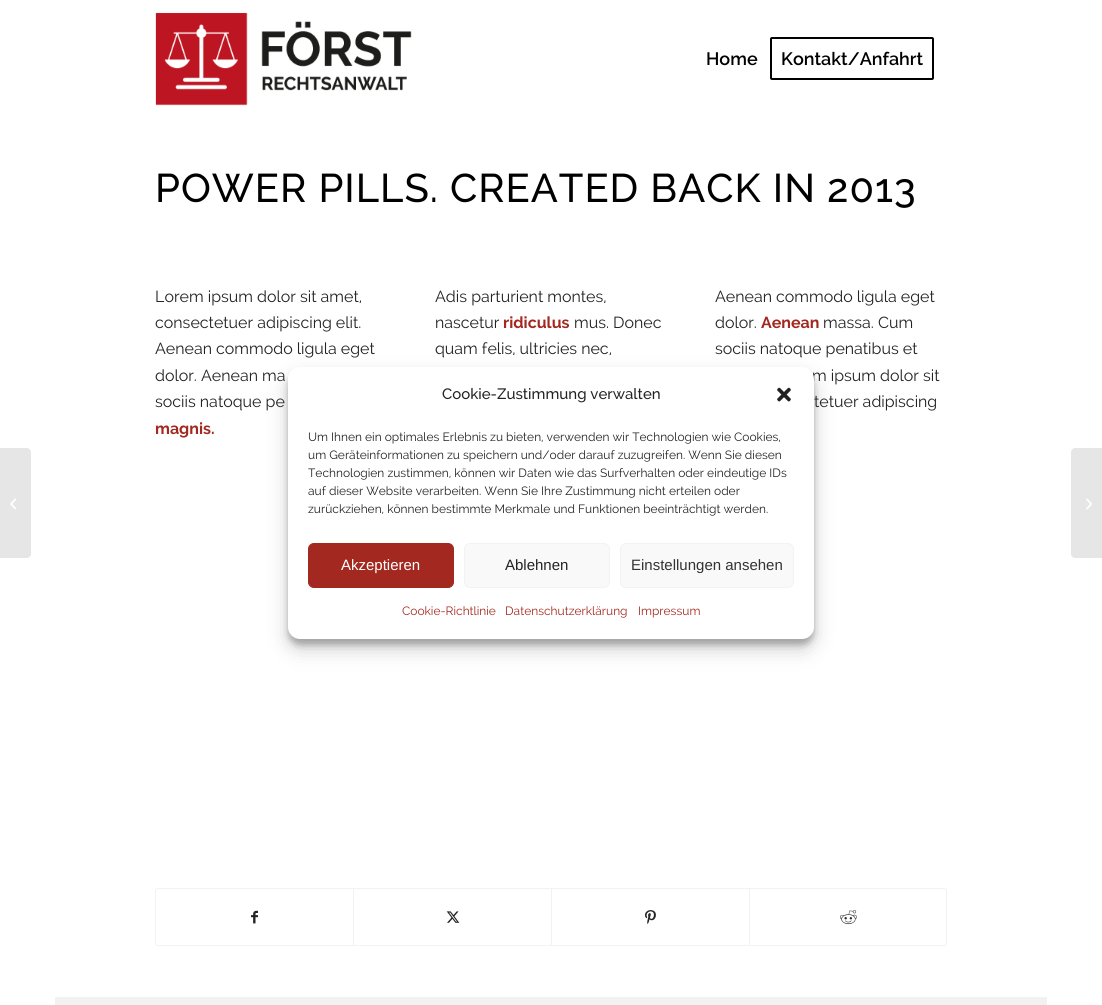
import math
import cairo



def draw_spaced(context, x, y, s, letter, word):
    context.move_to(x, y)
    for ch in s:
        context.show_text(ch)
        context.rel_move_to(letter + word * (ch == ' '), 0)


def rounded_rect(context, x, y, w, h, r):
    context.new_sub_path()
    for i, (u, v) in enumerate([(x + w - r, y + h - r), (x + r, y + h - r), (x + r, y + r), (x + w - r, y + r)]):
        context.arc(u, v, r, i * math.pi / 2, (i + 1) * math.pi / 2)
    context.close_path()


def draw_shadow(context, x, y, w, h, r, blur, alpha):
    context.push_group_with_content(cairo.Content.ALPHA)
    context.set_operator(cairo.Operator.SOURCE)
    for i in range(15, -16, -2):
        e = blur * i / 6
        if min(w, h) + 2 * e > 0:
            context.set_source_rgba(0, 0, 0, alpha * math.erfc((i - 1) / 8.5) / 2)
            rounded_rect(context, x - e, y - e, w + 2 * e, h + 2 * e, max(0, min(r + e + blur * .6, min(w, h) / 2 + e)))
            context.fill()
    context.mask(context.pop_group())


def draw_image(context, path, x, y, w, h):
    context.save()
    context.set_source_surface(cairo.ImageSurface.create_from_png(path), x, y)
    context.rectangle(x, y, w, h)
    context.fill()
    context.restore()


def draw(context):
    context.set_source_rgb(1, 1, 1)
    context.paint()
    draw_image(context, "images/1.png", 155, 12, 257, 94)
    rounded_rect(context, 771, 38, 162, 41, 1)
    context.set_source_rgb(0, 0, 0)
    context.stroke()
    rounded_rect(context, 155.5, 888.5, 791, 57, 2.5)
    context.set_source_rgb(242 / 255, 242 / 255, 242 / 255)
    context.set_line_width(1)
    context.stroke()
    draw_image(context, "images/2.png", 251, 910, 7, 14)
    context.rectangle(353, 889, 1, 56)
    context.fill()
    draw_image(context, "images/3.png", 446, 911, 14, 12)
    context.rectangle(551, 889, 1, 56)
    context.fill()
    draw_image(context, "images/4.png", 645, 910, 11, 14)
    context.rectangle(749, 889, 1, 56)
    context.fill()
    draw_image(context, "images/5.png", 840, 910, 17, 15)
    context.rectangle(55, 997, 992, 8)
    context.fill()
    context.set_source_rgb(230 / 255, 230 / 255, 230 / 255)
    context.new_path()
    context.move_to(0, 448)
    context.line_to(27, 448)
    context.curve_to(29, 448, 31, 450, 31, 452)
    context.line_to(31, 554)
    context.curve_to(31, 556, 29, 558, 27, 558)
    context.line_to(0, 558)
    context.close_path()
    context.fill()
    draw_image(context, "images/6.png", 10, 498, 6, 12)
    context.new_path()
    context.move_to(1075, 448)
    context.line_to(1102, 448)
    context.line_to(1102, 558)
    context.line_to(1075, 558)
    context.curve_to(1073, 558, 1071, 556, 1071, 554)
    context.line_to(1071, 452)
    context.curve_to(1071, 450, 1073, 448, 1075, 448)
    context.close_path()
    context.fill()
    draw_image(context, "images/7.png", 1086, 498, 6, 12)
    context.set_source_rgb(0, 0, 0)
    draw_shadow(context, 288, 373, 526, 272, 12, 3, 0.23)
    draw_shadow(context, 288, 377, 526, 272, 12, 10, 0.19)
    context.select_font_face("Raleway SemiBold")
    context.set_font_size(18)
    context.set_source_rgb(0, 0, 0)
    context.move_to(706, 65)
    context.show_text("Home")
    context.move_to(781, 65)
    context.show_text("Kontakt/Anfahrt")
    context.select_font_face("Raleway Medium")
    context.set_font_size(40)
    draw_spaced(context, 155, 202, "POWER PILLS. CREATED BACK IN 2013", 1, 0)
    context.select_font_face("Raleway")
    context.set_font_size(16)
    context.set_source_rgb(34 / 255, 34 / 255, 34 / 255)
    context.move_to(155, 302)
    context.show_text("Lorem ipsum dolor sit amet,")
    context.move_to(155, 328)
    context.show_text("consectetuer adipiscing elit.")
    context.move_to(155, 354)
    context.show_text("Aenean commodo ligula eget")
    context.move_to(155, 381)
    context.show_text("dolor. Aenean ma")
    context.move_to(155, 407)
    context.show_text("sociis natoque pe")
    context.select_font_face("Raleway", cairo.FontSlant.NORMAL, cairo.FontWeight.BOLD)
    context.set_source_rgb(163 / 255, 40 / 255, 31 / 255)
    context.move_to(155, 434)
    context.show_text("magnis.")
    context.select_font_face("Raleway")
    context.set_source_rgb(34 / 255, 34 / 255, 34 / 255)
    context.move_to(435, 302)
    context.show_text("Adis parturient montes,")
    context.move_to(435, 328)
    context.show_text("nascetur")
    context.select_font_face("Raleway", cairo.FontSlant.NORMAL, cairo.FontWeight.BOLD)
    context.set_source_rgb(163 / 255, 40 / 255, 31 / 255)
    context.move_to(503, 328)
    context.show_text("ridiculus")
    context.select_font_face("Raleway")
    context.set_source_rgb(34 / 255, 34 / 255, 34 / 255)
    context.move_to(574, 328)
    context.show_text("mus. Donec")
    context.move_to(435, 354)
    context.show_text("quam felis, ultricies nec,")
    context.move_to(715, 302)
    context.show_text("Aenean commodo ligula eget")
    context.move_to(715, 328)
    context.show_text("dolor.")
    context.select_font_face("Raleway", cairo.FontSlant.NORMAL, cairo.FontWeight.BOLD)
    context.set_source_rgb(163 / 255, 40 / 255, 31 / 255)
    context.move_to(761, 328)
    context.show_text("Aenean")
    context.select_font_face("Raleway")
    context.set_source_rgb(34 / 255, 34 / 255, 34 / 255)
    context.move_to(823, 328)
    context.show_text("massa. Cum")
    context.move_to(715, 354)
    context.show_text("sociis natoque penatibus et")
    context.move_to(812, 381)
    context.show_text("m ipsum dolor sit")
    context.move_to(814, 407)
    context.show_text("tetuer adipiscing")
    context.set_source_rgb(1, 1, 1)
    rounded_rect(context, 288, 367, 526, 272, 12)
    context.fill()
    context.select_font_face("Raleway Medium")
    context.set_font_size(15)
    context.set_source_rgb(34 / 255, 34 / 255, 34 / 255)
    context.move_to(442, 399)
    context.show_text("Cookie-Zustimmung verwalten")
    draw_image(context, "images/8.png", 777, 387, 14, 15)
    context.select_font_face("Raleway")
    context.set_font_size(12)
    context.move_to(308, 441)
    context.show_text("Um Ihnen ein optimales Erlebnis zu bieten, verwenden wir Technologien wie Cookies,")
    context.move_to(308, 459)
    context.show_text("um Geräteinformationen zu speichern und/oder darauf zuzugreifen. Wenn Sie diesen")
    context.move_to(308, 477)
    context.show_text("Technologien zustimmen, können wir Daten wie das Surfverhalten oder eindeutige IDs")
    context.move_to(308, 495)
    context.show_text("auf dieser Website verarbeiten. Wenn Sie Ihre Zustimmung nicht erteilen oder")
    context.move_to(308, 513)
    context.show_text("zurückziehen, können bestimmte Merkmale und Funktionen beeinträchtigt werden.")
    context.set_source_rgb(163 / 255, 40 / 255, 31 / 255)
    rounded_rect(context, 308.5, 543.5, 145, 44, 5.5)
    context.fill_preserve()
    context.stroke()
    context.select_font_face("Liberation Sans")
    context.set_font_size(15)
    context.set_source_rgb(1, 1, 1)
    context.move_to(341, 570)
    context.show_text("Akzeptieren")
    context.set_source_rgb(249 / 255, 249 / 255, 249 / 255)
    rounded_rect(context, 464.5, 543.5, 145, 44, 5.5)
    context.fill_preserve()
    context.set_source_rgb(242 / 255, 242 / 255, 242 / 255)
    context.stroke()
    context.set_source_rgb(34 / 255, 34 / 255, 34 / 255)
    context.move_to(505, 570)
    context.show_text("Ablehnen")
    context.set_source_rgb(249 / 255, 249 / 255, 249 / 255)
    rounded_rect(context, 620.5, 543.5, 173, 44, 5.5)
    context.fill_preserve()
    context.set_source_rgb(242 / 255, 242 / 255, 242 / 255)
    context.stroke()
    context.set_source_rgb(51 / 255, 51 / 255, 51 / 255)
    context.move_to(631, 570)
    context.show_text("Einstellungen ansehen")
    context.select_font_face("Raleway")
    context.set_font_size(12)
    context.set_source_rgb(163 / 255, 40 / 255, 31 / 255)
    context.move_to(402, 615)
    context.show_text("Cookie-Richtlinie")
    context.move_to(505, 615)
    context.show_text("Datenschutzerklärung")
    context.move_to(638, 615)
    context.show_text("Impressum")


surface = cairo.ImageSurface(cairo.Format.RGB24, 1102, 1005)
context = cairo.Context(surface)
options = cairo.FontOptions()
options.set_hint_metrics(cairo.HintMetrics.OFF)
options.set_hint_style(cairo.HintStyle.NONE)
context.set_font_options(options)
context.set_miter_limit(4)
draw(context)
surface.write_to_png("out.png")
